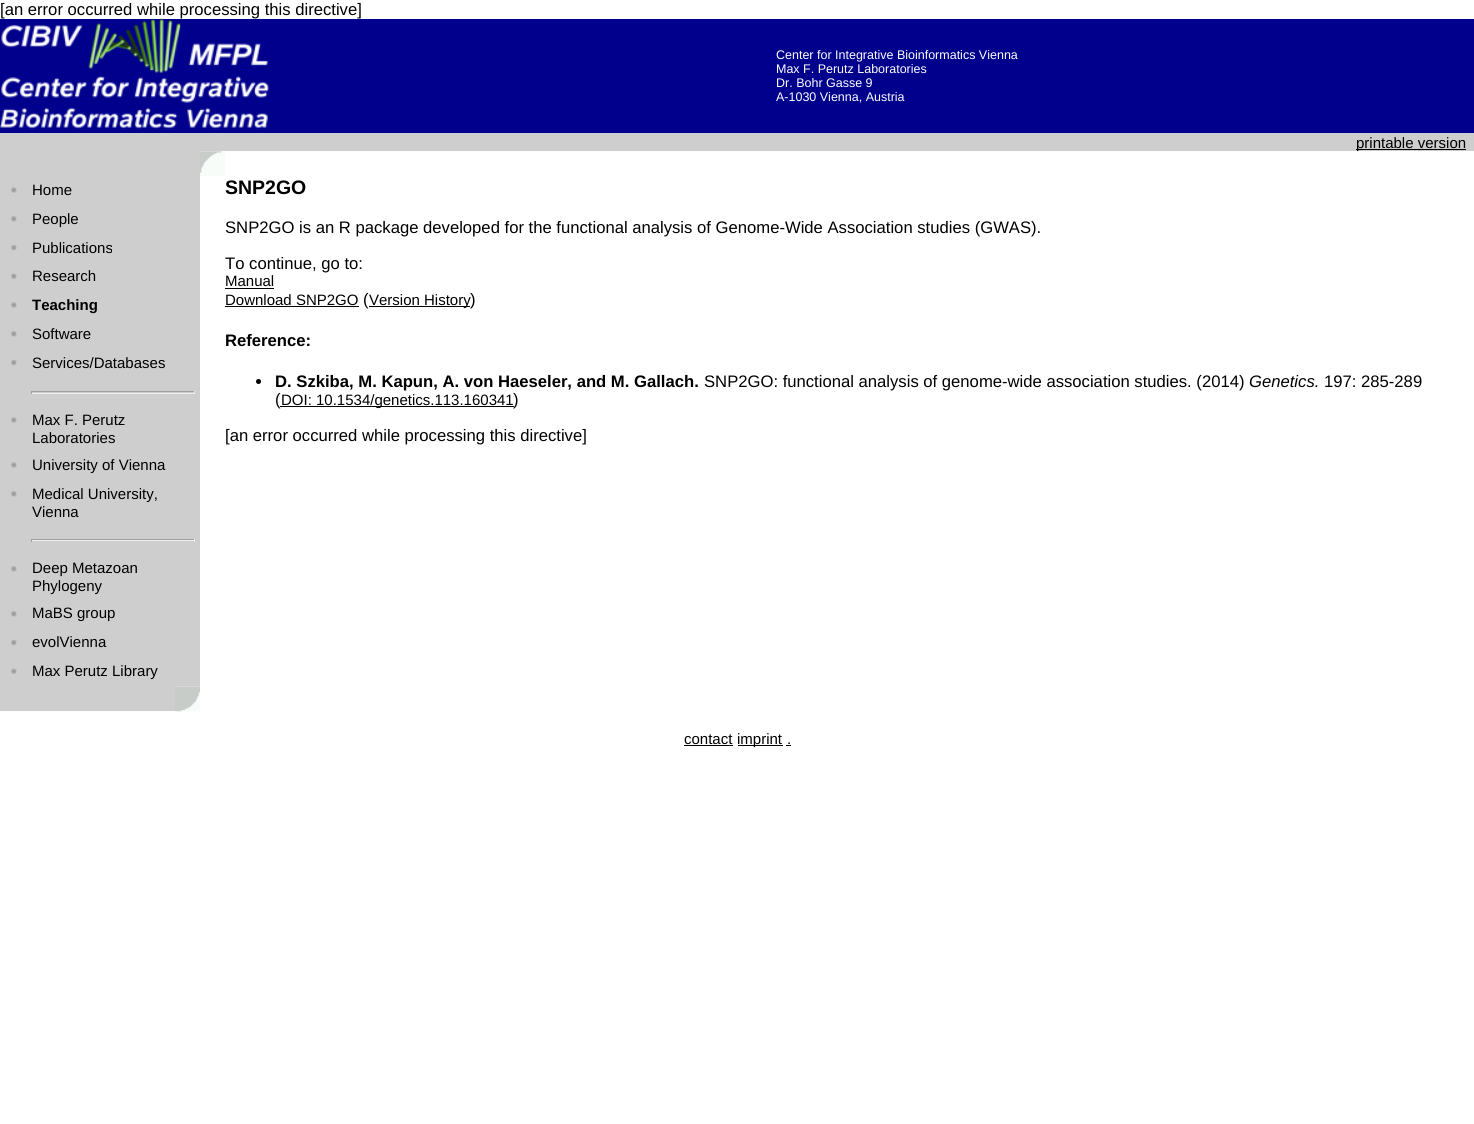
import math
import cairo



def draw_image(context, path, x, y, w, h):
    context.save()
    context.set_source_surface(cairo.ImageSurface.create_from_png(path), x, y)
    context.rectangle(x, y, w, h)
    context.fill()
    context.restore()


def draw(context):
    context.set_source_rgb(1, 1, 1)
    context.paint()
    context.set_source_rgb(0, 0, 140 / 255)
    context.rectangle(0, 19, 1474, 114)
    context.fill()
    context.set_source_rgb(206 / 255, 206 / 255, 206 / 255)
    context.rectangle(0, 133, 1474, 18)
    context.fill()
    context.set_source_rgb(0, 0, 0)
    context.rectangle(1356, 149, 110, 1)
    context.fill()
    context.set_source_rgb(206 / 255, 206 / 255, 206 / 255)
    context.rectangle(0, 151, 200, 535)
    context.fill()
    draw_image(context, "images/2.png", 200, 151, 25, 25)
    draw_image(context, "images/3.png", 11, 187, 6, 6)
    draw_image(context, "images/4.png", 11, 216, 6, 6)
    draw_image(context, "images/5.png", 11, 245, 6, 6)
    draw_image(context, "images/6.png", 11, 273, 6, 6)
    draw_image(context, "images/3.png", 11, 302, 6, 6)
    draw_image(context, "images/4.png", 11, 331, 6, 6)
    draw_image(context, "images/5.png", 11, 360, 6, 6)
    context.set_source_rgb(159 / 255, 159 / 255, 159 / 255)
    context.rectangle(31, 391, 164, 1)
    context.fill()
    context.set_source_rgb(238 / 255, 238 / 255, 238 / 255)
    context.rectangle(194, 391, 1, 3)
    context.fill()
    context.rectangle(31, 393, 164, 1)
    context.fill()
    context.set_source_rgb(159 / 255, 159 / 255, 159 / 255)
    context.rectangle(31, 391, 1, 3)
    context.fill()
    draw_image(context, "images/3.png", 11, 417, 6, 6)
    draw_image(context, "images/3.png", 11, 462, 6, 6)
    draw_image(context, "images/4.png", 11, 491, 6, 6)
    context.rectangle(31, 539, 164, 1)
    context.fill()
    context.set_source_rgb(238 / 255, 238 / 255, 238 / 255)
    context.rectangle(194, 539, 1, 3)
    context.fill()
    context.rectangle(31, 540, 164, 1)
    context.fill()
    context.set_source_rgb(159 / 255, 159 / 255, 159 / 255)
    context.rectangle(31, 539, 1, 3)
    context.fill()
    draw_image(context, "images/4.png", 11, 566, 6, 6)
    draw_image(context, "images/4.png", 11, 611, 6, 6)
    draw_image(context, "images/5.png", 11, 640, 6, 6)
    draw_image(context, "images/6.png", 11, 668, 6, 6)
    context.set_source_rgb(206 / 255, 206 / 255, 206 / 255)
    context.rectangle(0, 686, 175, 25)
    context.fill()
    draw_image(context, "images/7.png", 175, 686, 25, 26)
    context.set_source_rgb(0, 0, 0)
    context.rectangle(225, 288, 49, 1)
    context.fill()
    context.rectangle(225, 306, 134, 1)
    context.fill()
    context.rectangle(369, 306, 101, 1)
    context.fill()
    context.arc(258.5, 381.5, 2.5, 0, 2 * math.pi)
    context.fill()
    context.rectangle(280, 406, 234, 1)
    context.fill()
    context.rectangle(684, 745, 49, 1)
    context.fill()
    context.rectangle(738, 745, 45, 1)
    context.fill()
    context.rectangle(786, 745, 5, 1)
    context.fill()
    context.select_font_face("Liberation Sans")
    context.set_font_size(16.65)
    context.move_to(0, 15)
    context.show_text("[an error occurred while processing this directive]")
    draw_image(context, "images/1.png", 0, 18, 269, 111)
    context.set_font_size(12.5)
    context.set_source_rgb(1, 1, 1)
    context.move_to(776, 59)
    context.show_text("Center for Integrative Bioinformatics Vienna")
    context.move_to(776, 73)
    context.show_text("Max F. Perutz Laboratories")
    context.move_to(776, 87)
    context.show_text("Dr. Bohr Gasse 9")
    context.move_to(776, 101)
    context.show_text("A-1030 Vienna, Austria")
    context.set_font_size(15)
    context.set_source_rgb(0, 0, 0)
    context.move_to(1356, 148)
    context.show_text("printable version")
    context.move_to(32, 195)
    context.show_text("Home")
    context.move_to(32, 224)
    context.show_text("People")
    context.move_to(32, 253)
    context.show_text("Publications")
    context.move_to(32, 281)
    context.show_text("Research")
    context.select_font_face("Liberation Sans", cairo.FontSlant.NORMAL, cairo.FontWeight.BOLD)
    context.move_to(32, 310)
    context.show_text("Teaching")
    context.select_font_face("Liberation Sans")
    context.move_to(32, 339)
    context.show_text("Software")
    context.move_to(32, 368)
    context.show_text("Services/Databases")
    context.move_to(32, 425)
    context.show_text("Max F. Perutz")
    context.move_to(32, 443)
    context.show_text("Laboratories")
    context.move_to(32, 470)
    context.show_text("University of Vienna")
    context.move_to(32, 499)
    context.show_text("Medical University,")
    context.move_to(32, 517)
    context.show_text("Vienna")
    context.move_to(32, 573)
    context.show_text("Deep Metazoan")
    context.move_to(32, 591)
    context.show_text("Phylogeny")
    context.move_to(32, 618)
    context.show_text("MaBS group")
    context.move_to(32, 647)
    context.show_text("evolVienna")
    context.move_to(32, 676)
    context.show_text("Max Perutz Library")
    context.select_font_face("Liberation Sans", cairo.FontSlant.NORMAL, cairo.FontWeight.BOLD)
    context.set_font_size(19.5)
    context.move_to(225, 194)
    context.show_text("SNP2GO")
    context.select_font_face("Liberation Sans")
    context.set_font_size(16.65)
    context.move_to(225, 233)
    context.show_text("SNP2GO is an R package developed for the functional analysis of Genome-Wide Association studies (GWAS).")
    context.move_to(225, 269)
    context.show_text("To continue, go to:")
    context.set_font_size(15)
    context.move_to(225, 286)
    context.show_text("Manual")
    context.move_to(225, 305)
    context.show_text("Download SNP2GO")
    context.set_font_size(16.65)
    context.move_to(363, 305)
    context.show_text("(")
    context.set_font_size(15)
    context.move_to(369, 305)
    context.show_text("Version History")
    context.set_font_size(16.65)
    context.move_to(470, 305)
    context.show_text(")")
    context.select_font_face("Liberation Sans", cairo.FontSlant.NORMAL, cairo.FontWeight.BOLD)
    context.move_to(225, 346)
    context.show_text("Reference:")
    context.move_to(275, 387)
    context.show_text("D. Szkiba, M. Kapun, A. von Haeseler, and M. Gallach.")
    context.select_font_face("Liberation Sans")
    context.move_to(704, 387)
    context.show_text("SNP2GO: functional analysis of genome-wide association studies. (2014)")
    context.select_font_face("Liberation Sans", cairo.FontSlant.ITALIC)
    context.move_to(1249, 387)
    context.show_text("Genetics.")
    context.select_font_face("Liberation Sans")
    context.move_to(1324, 387)
    context.show_text("197: 285-289")
    context.move_to(275, 405)
    context.show_text("(")
    context.set_font_size(15)
    context.move_to(281, 405)
    context.show_text("DOI: 10.1534/genetics.113.160341")
    context.set_font_size(16.65)
    context.move_to(513, 405)
    context.show_text(")")
    context.move_to(225, 441)
    context.show_text("[an error occurred while processing this directive]")
    context.set_font_size(15)
    context.move_to(684, 744)
    context.show_text("contact")
    context.move_to(737, 744)
    context.show_text("imprint")
    context.move_to(787, 744)
    context.show_text(".")


surface = cairo.ImageSurface(cairo.Format.RGB24, 1474, 1124)
context = cairo.Context(surface)
options = cairo.FontOptions()
options.set_hint_metrics(cairo.HintMetrics.OFF)
options.set_hint_style(cairo.HintStyle.NONE)
context.set_font_options(options)
context.set_miter_limit(4)
draw(context)
surface.write_to_png("out.png")
